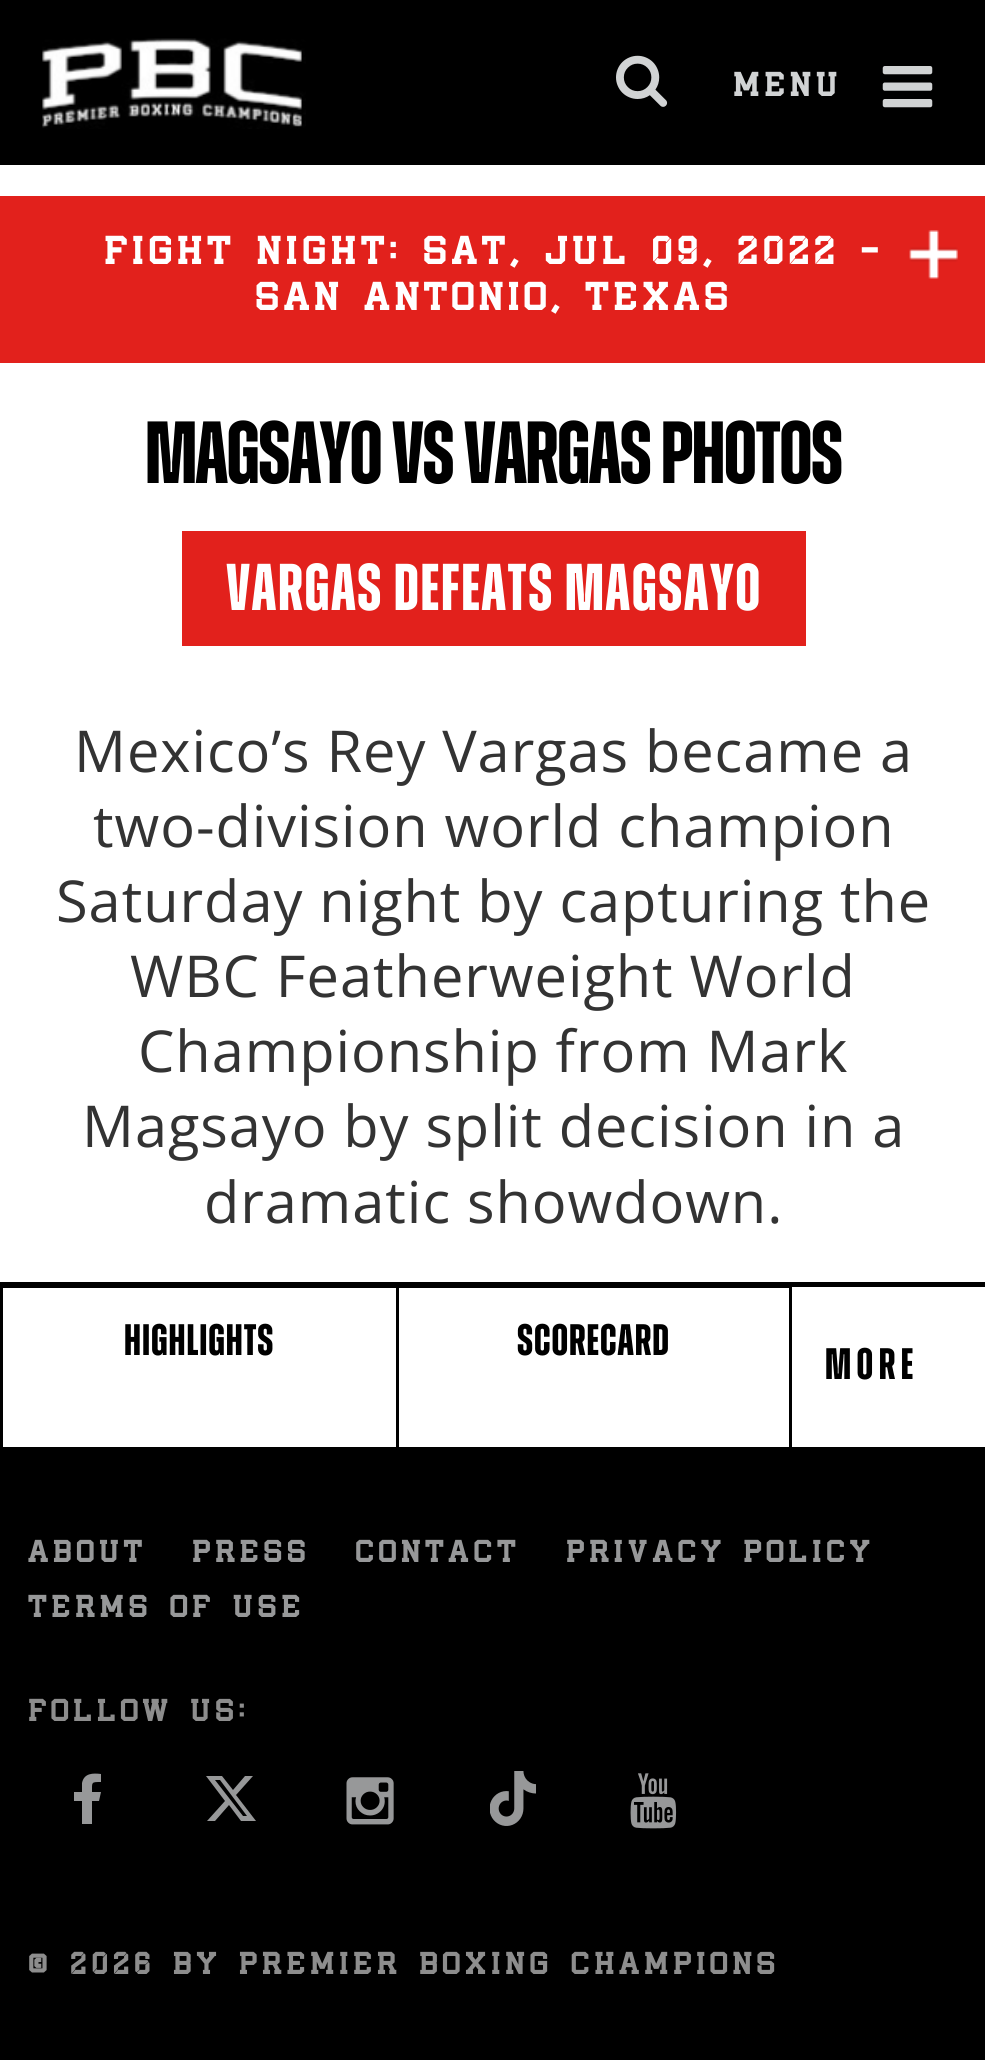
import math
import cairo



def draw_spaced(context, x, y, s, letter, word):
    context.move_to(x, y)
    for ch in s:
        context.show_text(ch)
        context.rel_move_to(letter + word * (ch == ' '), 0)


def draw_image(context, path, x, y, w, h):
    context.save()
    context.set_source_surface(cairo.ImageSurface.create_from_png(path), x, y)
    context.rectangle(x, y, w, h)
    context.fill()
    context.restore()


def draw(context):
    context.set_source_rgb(1, 1, 1)
    context.paint()
    context.set_source_rgb(0, 0, 0)
    context.rectangle(0, 0, 985, 165)
    context.fill()
    draw_image(context, "images/1.png", 42, 38, 264, 91)
    draw_image(context, "images/2.png", 616, 55, 52, 52)
    draw_image(context, "images/3.png", 882, 66, 51, 42)
    context.set_source_rgb(226 / 255, 33 / 255, 28 / 255)
    context.rectangle(0, 196, 985, 167)
    context.fill()
    draw_image(context, "images/4.png", 909, 230, 49, 49)
    context.rectangle(182, 531, 624, 115)
    context.fill()
    context.set_source_rgb(0, 0, 0)
    context.rectangle(0, 1282, 985, 6)
    context.fill()
    context.rectangle(0, 1447, 985, 613)
    context.fill()
    context.rectangle(0, 1287, 3, 160)
    context.fill()
    context.rectangle(396, 1287, 3, 160)
    context.fill()
    context.set_source_rgb(1, 1, 1)
    context.rectangle(792, 1287, 193, 1)
    context.fill()
    context.set_source_rgb(0, 0, 0)
    context.rectangle(789, 1287, 3, 160)
    context.fill()
    context.set_source_rgb(151 / 255, 152 / 255, 153 / 255)
    context.new_path()
    context.move_to(101, 1774)
    context.line_to(101, 1782)
    context.curve_to(91, 1782, 92, 1782, 92, 1792)
    context.line_to(101, 1792)
    context.line_to(99, 1801)
    context.line_to(92, 1801)
    context.line_to(92, 1824)
    context.line_to(82, 1824)
    context.line_to(82, 1801)
    context.line_to(74, 1801)
    context.line_to(74, 1792)
    context.line_to(82, 1792)
    context.line_to(82, 1783)
    context.curve_to(84, 1773, 93, 1773, 101, 1774)
    context.close_path()
    context.fill()
    context.new_path()
    context.move_to(245, 1776)
    context.line_to(253, 1776)
    context.line_to(236, 1795)
    context.line_to(256, 1821)
    context.line_to(241, 1821)
    context.line_to(229, 1805)
    context.line_to(215, 1821)
    context.line_to(207, 1821)
    context.line_to(225, 1801)
    context.line_to(206, 1776)
    context.line_to(222, 1776)
    context.line_to(233, 1790)
    context.close_path()
    context.move_to(243, 1816)
    context.line_to(247, 1816)
    context.line_to(220, 1780)
    context.line_to(215, 1780)
    context.close_path()
    context.fill()
    draw_image(context, "images/5.png", 346, 1777, 48, 48)
    draw_image(context, "images/6.png", 490, 1771, 46, 55)
    draw_image(context, "images/7.png", 630, 1773, 47, 56)
    context.select_font_face("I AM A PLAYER", cairo.FontSlant.NORMAL, cairo.FontWeight.BOLD)
    context.set_font_size(33)
    context.set_source_rgb(209 / 255, 211 / 255, 212 / 255)
    draw_spaced(context, 733, 96, "MENU", 5.5, 0)
    context.set_font_size(38.5)
    context.set_source_rgb(1, 1, 1)
    draw_spaced(context, 104, 264, "FIGHT NIGHT: SAT, JUL 09, 2022 -", 5.5, 0)
    draw_spaced(context, 255, 310, "SAN ANTONIO, TEXAS", 5.5, 0)
    context.select_font_face("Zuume", cairo.FontSlant.NORMAL, cairo.FontWeight.BOLD)
    context.set_font_size(88)
    context.set_source_rgb(0, 0, 0)
    draw_spaced(context, 145, 483, "MAGSAYO VS VARGAS PHOTOS", -1.6, 0)
    context.set_font_size(66)
    context.set_source_rgb(1, 1, 1)
    draw_spaced(context, 226, 610, "VARGAS DEFEATS MAGSAYO", 1.65, 0)
    context.select_font_face("Open Sans")
    context.set_font_size(57.75)
    context.set_source_rgb(51 / 255, 51 / 255, 51 / 255)
    draw_spaced(context, 74, 772, "Mexico’s Rey Vargas became a", 0.95, 0)
    draw_spaced(context, 93, 847, "two-division world champion", 0.95, 0)
    draw_spaced(context, 56, 922, "Saturday night by capturing the", 0.95, 0)
    draw_spaced(context, 130, 997, "WBC Featherweight World", 0.95, 0)
    draw_spaced(context, 138, 1072, "Championship from Mark", 0.95, 0)
    draw_spaced(context, 82, 1147, "Magsayo by split decision in a", 0.95, 0)
    draw_spaced(context, 204, 1223, "dramatic showdown.", 0.95, 0)
    context.select_font_face("Zuume", cairo.FontSlant.NORMAL, cairo.FontWeight.BOLD)
    context.set_font_size(44)
    context.set_source_rgb(0, 0, 0)
    draw_spaced(context, 124, 1355, "HIGHLIGHTS", 0.95, 0)
    draw_spaced(context, 517, 1355, "SCORECARD", 0.95, 0)
    draw_spaced(context, 825, 1379, "MORE", 5.5, 0)
    context.select_font_face("I AM A PLAYER", cairo.FontSlant.NORMAL, cairo.FontWeight.BOLD)
    context.set_font_size(30.25)
    context.set_source_rgb(151 / 255, 152 / 255, 153 / 255)
    draw_spaced(context, 28, 1562, "ABOUT", 5.5, 0)
    draw_spaced(context, 192, 1562, "PRESS", 5.5, 0)
    draw_spaced(context, 355, 1562, "CONTACT", 5.5, 0)
    draw_spaced(context, 566, 1562, "PRIVACY POLICY", 5.5, 0)
    draw_spaced(context, 28, 1617, "TERMS OF USE", 5.5, 0)
    context.set_source_rgb(141 / 255, 141 / 255, 141 / 255)
    draw_spaced(context, 28, 1721, "FOLLOW US:", 5.5, 0)
    draw_spaced(context, 28, 1974, "© 2026 BY PREMIER BOXING CHAMPIONS", 5.5, 0)


surface = cairo.ImageSurface(cairo.Format.RGB24, 985, 2070)
context = cairo.Context(surface)
options = cairo.FontOptions()
options.set_hint_metrics(cairo.HintMetrics.OFF)
options.set_hint_style(cairo.HintStyle.NONE)
context.set_font_options(options)
context.set_miter_limit(4)
draw(context)
surface.write_to_png("out.png")
